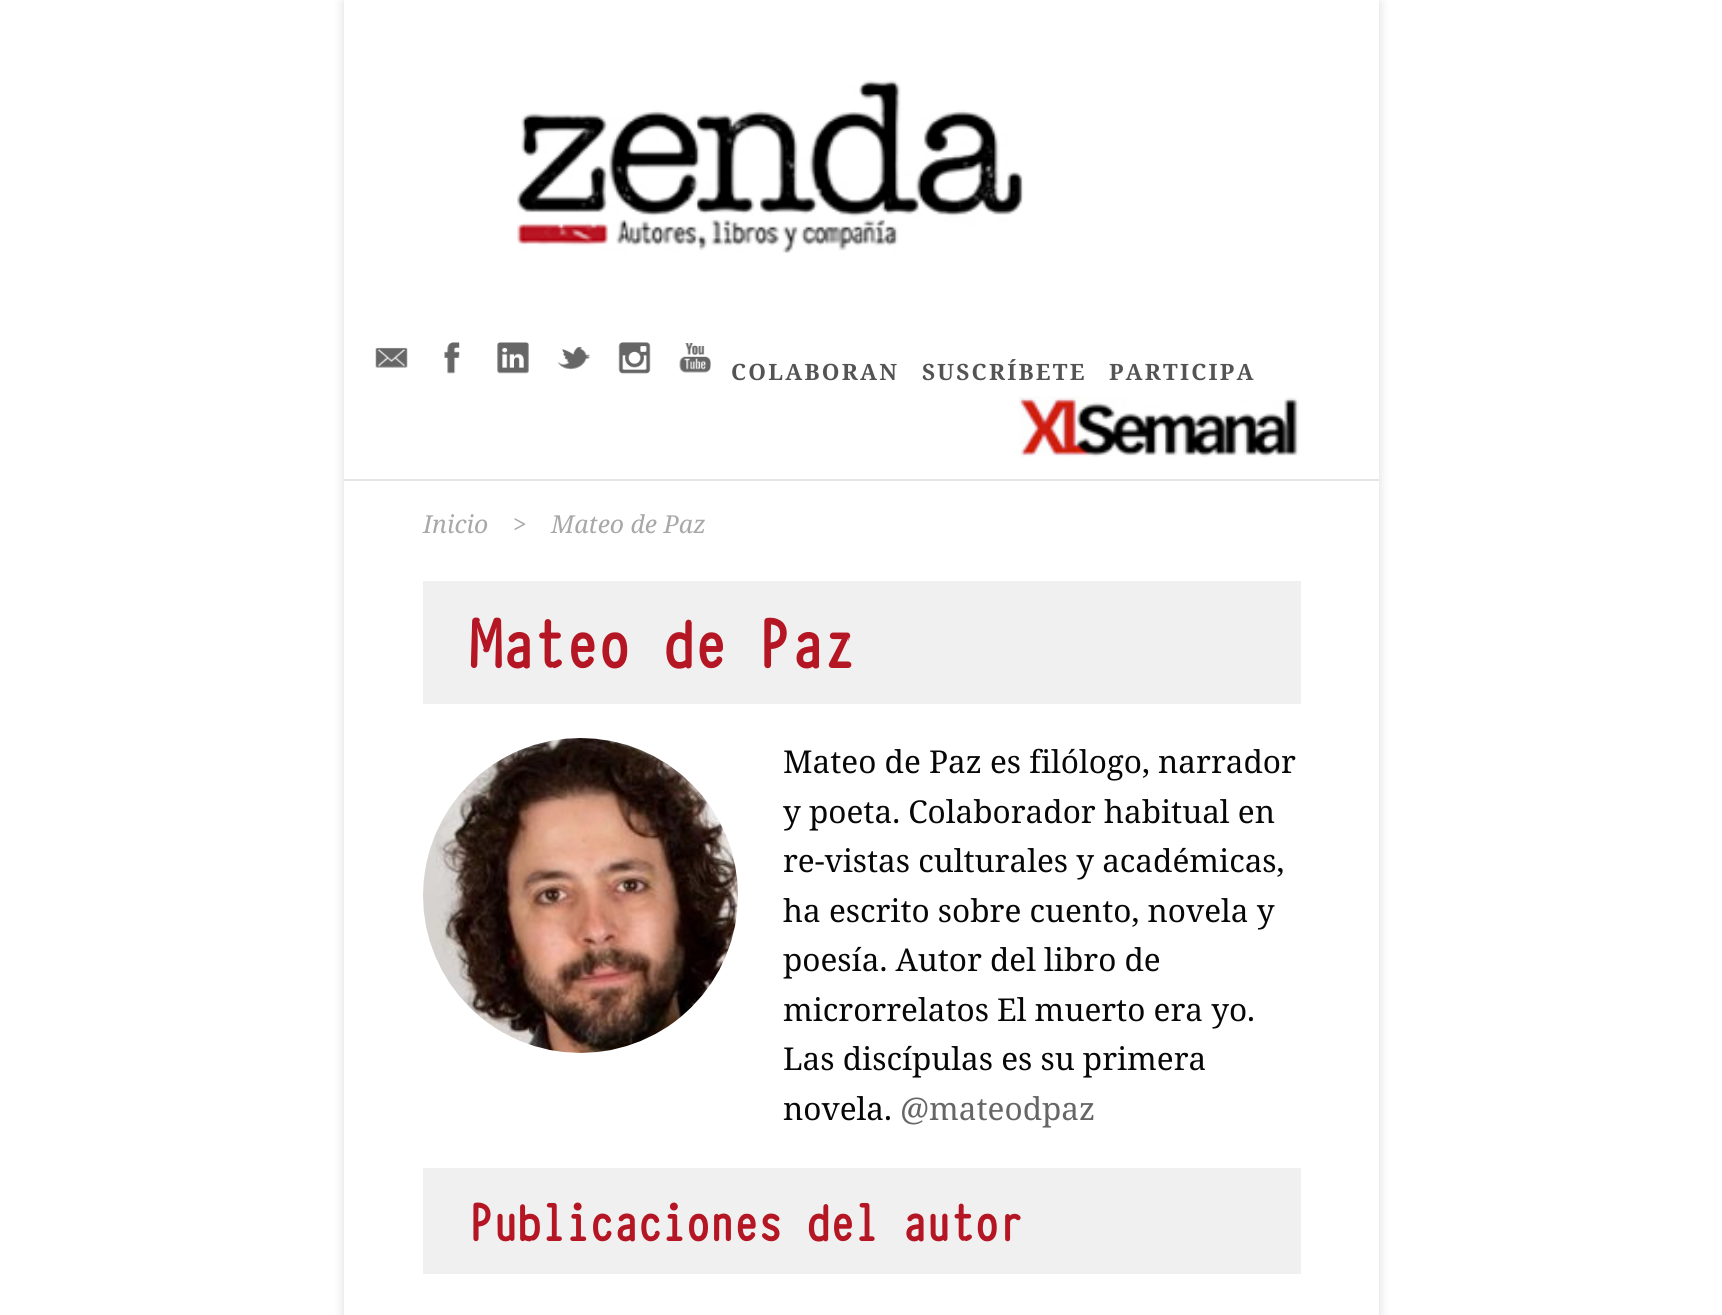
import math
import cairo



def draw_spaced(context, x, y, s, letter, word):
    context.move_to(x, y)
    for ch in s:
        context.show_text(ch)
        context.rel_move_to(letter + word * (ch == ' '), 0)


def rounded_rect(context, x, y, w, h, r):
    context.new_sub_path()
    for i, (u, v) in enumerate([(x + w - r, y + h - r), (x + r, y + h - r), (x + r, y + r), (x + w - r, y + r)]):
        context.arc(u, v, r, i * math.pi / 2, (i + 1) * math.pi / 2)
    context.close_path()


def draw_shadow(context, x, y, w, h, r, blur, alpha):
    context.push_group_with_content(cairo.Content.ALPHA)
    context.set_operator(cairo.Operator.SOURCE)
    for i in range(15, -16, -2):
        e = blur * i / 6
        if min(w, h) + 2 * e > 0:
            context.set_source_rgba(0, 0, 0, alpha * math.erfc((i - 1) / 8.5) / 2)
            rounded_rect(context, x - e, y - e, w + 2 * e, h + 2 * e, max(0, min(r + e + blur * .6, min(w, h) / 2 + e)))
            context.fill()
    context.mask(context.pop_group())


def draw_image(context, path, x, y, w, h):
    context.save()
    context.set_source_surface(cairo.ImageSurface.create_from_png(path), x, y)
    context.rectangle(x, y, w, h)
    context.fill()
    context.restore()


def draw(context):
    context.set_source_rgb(1, 1, 1)
    context.paint()
    context.set_source_rgb(0, 0, 0)
    draw_shadow(context, 344, 2, 1035, 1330, 0, 5.5, 0.15)
    context.set_source_rgb(1, 1, 1)
    context.rectangle(344, 0, 1035, 1315)
    context.fill()
    context.set_source_rgb(228 / 255, 228 / 255, 228 / 255)
    context.rectangle(344, 479, 1035, 2)
    context.fill()
    draw_image(context, "images/1.png", 517, 80, 507, 173)
    draw_image(context, "images/2.png", 375, 347, 33, 21)
    draw_image(context, "images/3.png", 444, 342, 16, 32)
    draw_image(context, "images/4.png", 497, 342, 32, 32)
    draw_image(context, "images/5.png", 558, 346, 32, 24)
    draw_image(context, "images/6.png", 618, 342, 33, 32)
    draw_image(context, "images/7.png", 679, 343, 32, 30)
    draw_image(context, "images/8.png", 1019, 396, 280, 61)
    context.set_source_rgb(240 / 255, 240 / 255, 240 / 255)
    context.rectangle(423, 581, 878, 123)
    context.fill()
    draw_image(context, "images/9.png", 423, 738, 315, 315)
    context.rectangle(423, 1168, 878, 106)
    context.fill()
    context.select_font_face("Noto Serif", cairo.FontSlant.NORMAL, cairo.FontWeight.BOLD)
    context.set_font_size(22.5)
    context.set_source_rgb(84 / 255, 84 / 255, 84 / 255)
    draw_spaced(context, 731, 380, "COLABORAN", 2.25, 0)
    draw_spaced(context, 922, 380, "SUSCRÍBETE", 2.25, 0)
    draw_spaced(context, 1109, 380, "PARTICIPA", 2.25, 0)
    context.select_font_face("Noto Serif", cairo.FontSlant.ITALIC)
    context.set_font_size(24.75)
    context.set_source_rgb(168 / 255, 168 / 255, 168 / 255)
    context.move_to(423, 533)
    context.show_text("Inicio")
    context.move_to(513, 533)
    context.show_text(">")
    context.move_to(551, 533)
    context.show_text("Mateo de Paz")
    context.select_font_face("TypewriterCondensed", cairo.FontSlant.NORMAL, cairo.FontWeight.BOLD)
    context.set_font_size(76.5)
    context.set_source_rgb(181 / 255, 22 / 255, 35 / 255)
    draw_spaced(context, 468, 668, "Mateo de Paz", -2.25, 0)
    context.select_font_face("Noto Serif")
    context.set_font_size(31.5)
    context.set_source_rgb(7 / 255, 7 / 255, 7 / 255)
    context.move_to(783, 773)
    context.show_text("Mateo de Paz es filólogo, narrador")
    context.move_to(783, 823)
    context.show_text("y poeta. Colaborador habitual en")
    context.move_to(783, 872)
    context.show_text("re-vistas culturales y académicas,")
    context.move_to(783, 922)
    context.show_text("ha escrito sobre cuento, novela y")
    context.move_to(783, 971)
    context.show_text("poesía. Autor del libro de")
    context.move_to(783, 1021)
    context.show_text("microrrelatos El muerto era yo.")
    context.move_to(783, 1070)
    context.show_text("Las discípulas es su primera")
    context.move_to(783, 1120)
    context.show_text("novela.")
    context.set_source_rgb(102 / 255, 102 / 255, 102 / 255)
    context.move_to(900, 1120)
    context.show_text("@mateodpaz")
    context.select_font_face("TypewriterCondensed", cairo.FontSlant.NORMAL, cairo.FontWeight.BOLD)
    context.set_font_size(58.5)
    context.set_source_rgb(181 / 255, 22 / 255, 35 / 255)
    draw_spaced(context, 468, 1241, "Publicaciones del autor", -2.25, 0)


surface = cairo.ImageSurface(cairo.Format.RGB24, 1722, 1315)
context = cairo.Context(surface)
options = cairo.FontOptions()
options.set_hint_metrics(cairo.HintMetrics.OFF)
options.set_hint_style(cairo.HintStyle.NONE)
context.set_font_options(options)
context.set_miter_limit(4)
draw(context)
surface.write_to_png("out.png")
